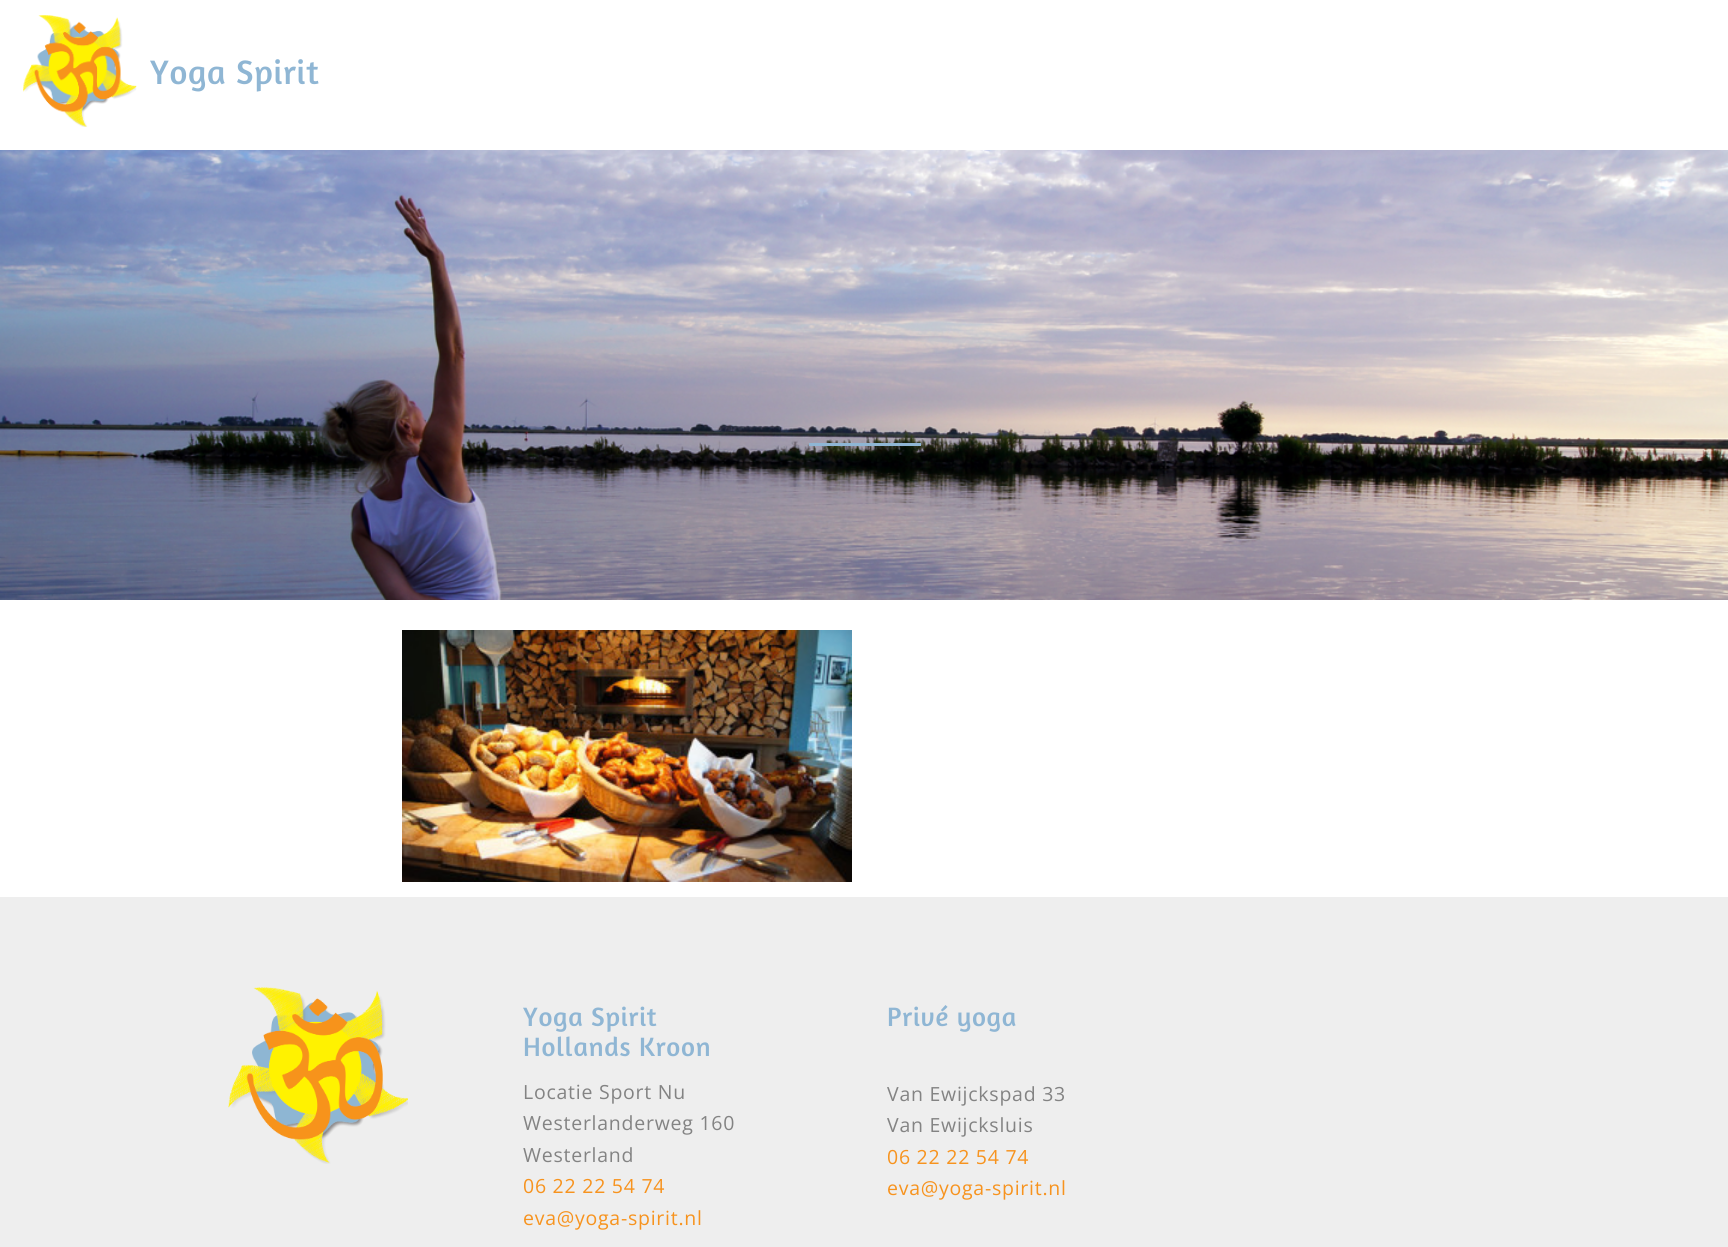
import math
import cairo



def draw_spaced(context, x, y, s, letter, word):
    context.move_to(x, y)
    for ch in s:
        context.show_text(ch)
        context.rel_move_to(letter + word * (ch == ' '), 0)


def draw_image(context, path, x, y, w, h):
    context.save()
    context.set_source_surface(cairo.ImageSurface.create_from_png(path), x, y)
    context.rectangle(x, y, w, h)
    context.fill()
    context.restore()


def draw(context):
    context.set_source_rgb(1, 1, 1)
    context.paint()
    draw_image(context, "images/1.png", 23, 15, 114, 112)
    draw_image(context, "images/2.png", 0, 150, 1728, 450)
    context.set_source_rgb(143 / 255, 182 / 255, 212 / 255)
    context.rectangle(809, 443, 112, 3)
    context.fill()
    draw_image(context, "images/3.png", 402, 630, 450, 252)
    context.set_source_rgb(238 / 255, 238 / 255, 238 / 255)
    context.rectangle(0, 897, 1728, 350)
    context.fill()
    draw_image(context, "images/4.png", 228, 987, 180, 177)
    context.select_font_face("Amaranth")
    context.set_font_size(34.5)
    context.set_source_rgb(143 / 255, 182 / 255, 212 / 255)
    draw_spaced(context, 150, 84, "Yoga Spirit", 0.75, 0)
    context.set_font_size(27)
    draw_spaced(context, 523, 1026, "Yoga Spirit", 0.75, 0)
    draw_spaced(context, 523, 1056, "Hollands Kroon", 0.75, 0)
    context.select_font_face("Open Sans")
    context.set_font_size(19.5)
    context.set_source_rgb(131 / 255, 131 / 255, 131 / 255)
    draw_spaced(context, 523, 1099, "Locatie Sport Nu", 0.75, 0)
    draw_spaced(context, 523, 1130, "Westerlanderweg 160", 0.75, 0)
    draw_spaced(context, 523, 1162, "Westerland", 0.75, 0)
    context.set_source_rgb(247 / 255, 147 / 255, 30 / 255)
    draw_spaced(context, 523, 1193, "06 22 22 54 74", 0.75, 0)
    draw_spaced(context, 523, 1225, "eva@yoga-spirit.nl", 0.75, 0)
    context.select_font_face("Amaranth")
    context.set_font_size(27)
    context.set_source_rgb(143 / 255, 182 / 255, 212 / 255)
    draw_spaced(context, 887, 1026, "Privé yoga", 0.75, 0)
    context.select_font_face("Open Sans")
    context.set_font_size(19.5)
    context.set_source_rgb(131 / 255, 131 / 255, 131 / 255)
    draw_spaced(context, 887, 1101, "Van Ewijckspad 33", 0.75, 0)
    draw_spaced(context, 887, 1132, "Van Ewijcksluis", 0.75, 0)
    context.set_source_rgb(247 / 255, 147 / 255, 30 / 255)
    draw_spaced(context, 887, 1164, "06 22 22 54 74", 0.75, 0)
    draw_spaced(context, 887, 1195, "eva@yoga-spirit.nl", 0.75, 0)


surface = cairo.ImageSurface(cairo.Format.RGB24, 1728, 1247)
context = cairo.Context(surface)
options = cairo.FontOptions()
options.set_hint_metrics(cairo.HintMetrics.OFF)
options.set_hint_style(cairo.HintStyle.NONE)
context.set_font_options(options)
context.set_miter_limit(4)
draw(context)
surface.write_to_png("out.png")
